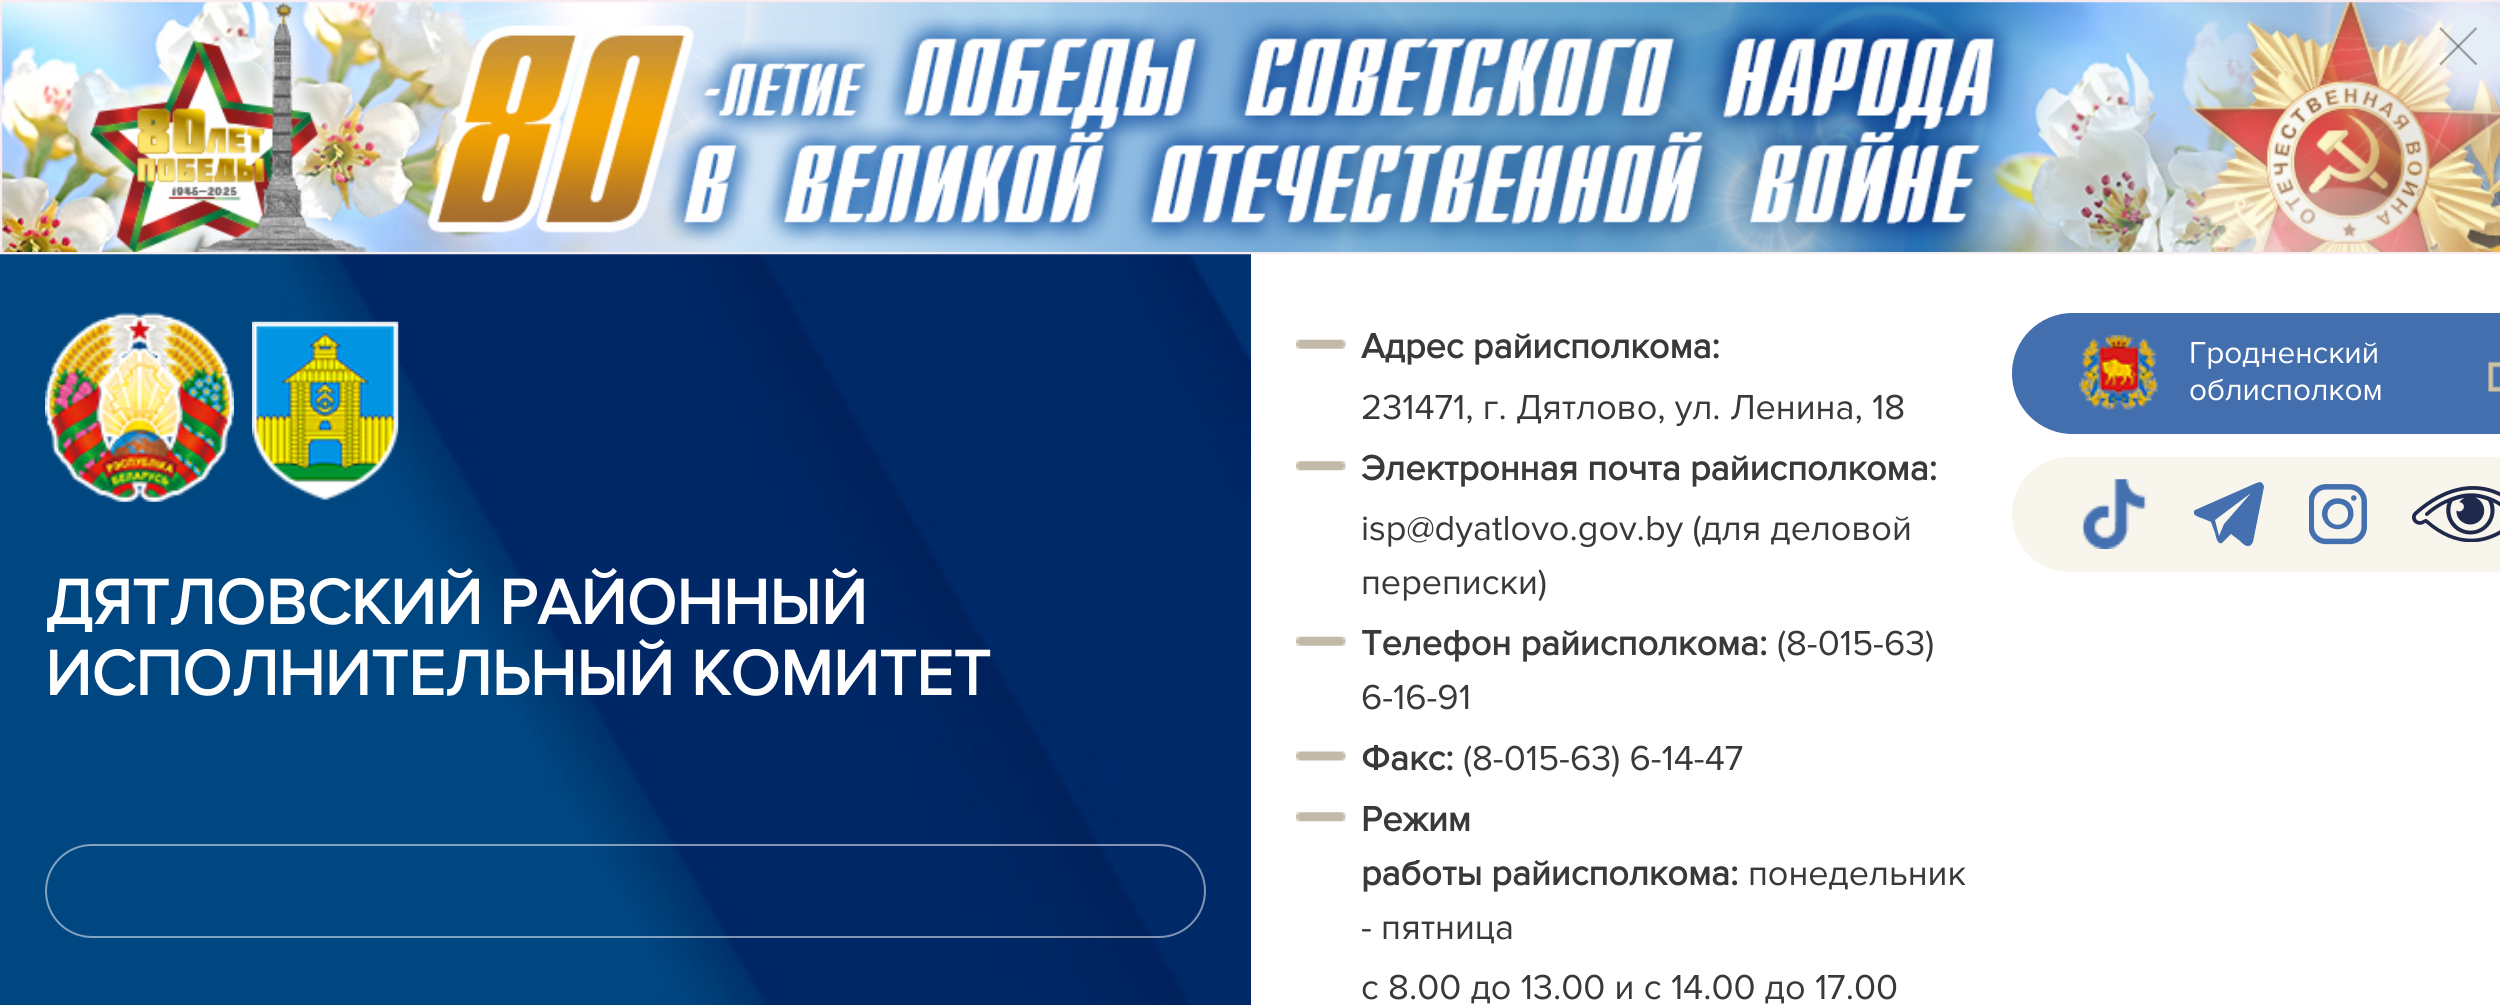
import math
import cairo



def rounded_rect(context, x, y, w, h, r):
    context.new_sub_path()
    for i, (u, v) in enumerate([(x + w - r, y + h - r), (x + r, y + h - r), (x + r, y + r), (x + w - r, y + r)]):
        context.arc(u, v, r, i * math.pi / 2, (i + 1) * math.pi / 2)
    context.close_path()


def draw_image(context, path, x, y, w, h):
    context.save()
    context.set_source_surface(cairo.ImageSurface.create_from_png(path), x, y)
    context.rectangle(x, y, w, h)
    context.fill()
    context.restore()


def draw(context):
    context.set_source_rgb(1, 1, 1)
    context.paint()
    context.set_source_rgb(248 / 255, 236 / 255, 240 / 255)
    context.rectangle(0, 0, 2500, 254)
    context.fill()
    draw_image(context, "images/1.png", 2, 2, 2498, 250)
    context.new_path()
    context.move_to(2476.5, 64.5)
    context.line_to(2440, 28)
    context.set_source_rgba(79 / 255, 80 / 255, 79 / 255, 0.5)
    context.set_line_width(2.3)
    context.stroke()
    context.new_path()
    context.move_to(2440, 64.5)
    context.line_to(2476.5, 28)
    context.stroke()
    draw_image(context, "images/2.png", 0, 254, 1251, 751)
    draw_image(context, "images/3.png", 45, 312, 189, 190)
    draw_image(context, "images/4.png", 252, 321, 147, 180)
    rounded_rect(context, 46, 845, 1159, 92, 46)
    context.set_source_rgba(1, 1, 1, 0.5)
    context.set_line_width(2)
    context.stroke()
    draw_image(context, "images/5.png", 1296, 339, 50, 10)
    draw_image(context, "images/6.png", 1296, 461, 50, 10)
    draw_image(context, "images/5.png", 1296, 636, 50, 10)
    draw_image(context, "images/7.png", 1296, 751, 50, 10)
    draw_image(context, "images/6.png", 1296, 812, 50, 10)
    context.set_source_rgb(68 / 255, 111 / 255, 175 / 255)
    context.new_path()
    context.move_to(2072.5, 313)
    context.line_to(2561, 313)
    context.line_to(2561, 434)
    context.line_to(2072.5, 434)
    context.curve_to(2039, 434, 2012, 407, 2012, 373.5)
    context.curve_to(2012, 340, 2039, 313, 2072.5, 313)
    context.close_path()
    context.fill()
    draw_image(context, "images/8.png", 2079, 335, 79, 75)
    draw_image(context, "images/9.png", 2488, 361, 12, 31)
    context.set_source_rgb(248 / 255, 245 / 255, 236 / 255)
    context.new_path()
    context.move_to(2069.5, 457)
    context.line_to(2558, 457)
    context.line_to(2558, 572)
    context.line_to(2069.5, 572)
    context.curve_to(2037.5, 572, 2012, 546.5, 2012, 514.5)
    context.curve_to(2012, 482.5, 2037.5, 457, 2069.5, 457)
    context.close_path()
    context.fill()
    draw_image(context, "images/10.png", 2081, 479, 66, 70)
    context.save()
    context.rectangle(2194, 482, 70, 65)
    context.clip()
    context.set_source_rgb(68 / 255, 112 / 255, 176 / 255)
    context.new_path()
    context.move_to(2262, 483)
    context.curve_to(2260, 481, 2257, 483, 2254, 484)
    context.line_to(2195, 510)
    context.curve_to(2189, 515, 2202, 518, 2204, 519)
    context.line_to(2211, 522)
    context.line_to(2215, 533)
    context.curve_to(2216, 536, 2217, 545, 2222, 543)
    context.line_to(2231, 534)
    context.line_to(2240, 541)
    context.curve_to(2243, 544, 2247, 548, 2251, 545)
    context.line_to(2253, 542)
    context.line_to(2264, 487)
    context.curve_to(2264, 486, 2263, 484, 2262, 483)
    context.close_path()
    context.move_to(2224, 524)
    context.line_to(2219, 536)
    context.line_to(2215, 520)
    context.line_to(2251, 493)
    context.close_path()
    context.fill()
    context.restore()
    draw_image(context, "images/11.png", 2309, 484, 58, 61)
    draw_image(context, "images/12.png", 2412, 486, 88, 56)
    context.select_font_face("Proxima Nova", cairo.FontSlant.NORMAL, cairo.FontWeight.BOLD)
    context.set_font_size(65.25)
    context.set_source_rgb(1, 1, 1)
    context.move_to(45, 624)
    context.show_text("ДЯТЛОВСКИЙ РАЙОННЫЙ")
    context.move_to(45, 695)
    context.show_text("ИСПОЛНИТЕЛЬНЫЙ КОМИТЕТ")
    context.set_font_size(36)
    context.set_source_rgb(57 / 255, 57 / 255, 57 / 255)
    context.move_to(1361, 358)
    context.show_text("Адрес райисполкома:")
    context.select_font_face("Proxima Nova")
    context.move_to(1361, 419)
    context.show_text("231471, г. Дятлово, ул. Ленина, 18")
    context.select_font_face("Proxima Nova", cairo.FontSlant.NORMAL, cairo.FontWeight.BOLD)
    context.move_to(1361, 480)
    context.show_text("Электронная почта райисполкома:")
    context.select_font_face("Proxima Nova")
    context.move_to(1361, 540)
    context.show_text("isp@dyatlovo.gov.by (для деловой")
    context.move_to(1361, 594)
    context.show_text("переписки)")
    context.select_font_face("Proxima Nova", cairo.FontSlant.NORMAL, cairo.FontWeight.BOLD)
    context.move_to(1361, 655)
    context.show_text("Телефон райисполкома:")
    context.select_font_face("Proxima Nova")
    context.move_to(1777, 655)
    context.show_text("(8-015-63)")
    context.move_to(1361, 709)
    context.show_text("6-16-91")
    context.select_font_face("Proxima Nova", cairo.FontSlant.NORMAL, cairo.FontWeight.BOLD)
    context.move_to(1361, 770)
    context.show_text("Факс:")
    context.select_font_face("Proxima Nova")
    context.move_to(1463, 770)
    context.show_text("(8-015-63) 6-14-47")
    context.select_font_face("Proxima Nova", cairo.FontSlant.NORMAL, cairo.FontWeight.BOLD)
    context.move_to(1361, 831)
    context.show_text("Режим")
    context.move_to(1361, 885)
    context.show_text("работы райисполкома:")
    context.select_font_face("Proxima Nova")
    context.move_to(1748, 885)
    context.show_text("понедельник")
    context.move_to(1361, 939)
    context.show_text("- пятница")
    context.move_to(1361, 999)
    context.show_text("с 8.00 до 13.00 и с 14.00 до 17.00")
    context.set_font_size(31.5)
    context.set_source_rgb(1, 1, 1)
    context.move_to(2189, 363)
    context.show_text("Гродненский")
    context.move_to(2189, 400)
    context.show_text("облисполком")


surface = cairo.ImageSurface(cairo.Format.RGB24, 2500, 1005)
context = cairo.Context(surface)
options = cairo.FontOptions()
options.set_hint_metrics(cairo.HintMetrics.OFF)
options.set_hint_style(cairo.HintStyle.NONE)
context.set_font_options(options)
context.set_miter_limit(4)
draw(context)
surface.write_to_png("out.png")
